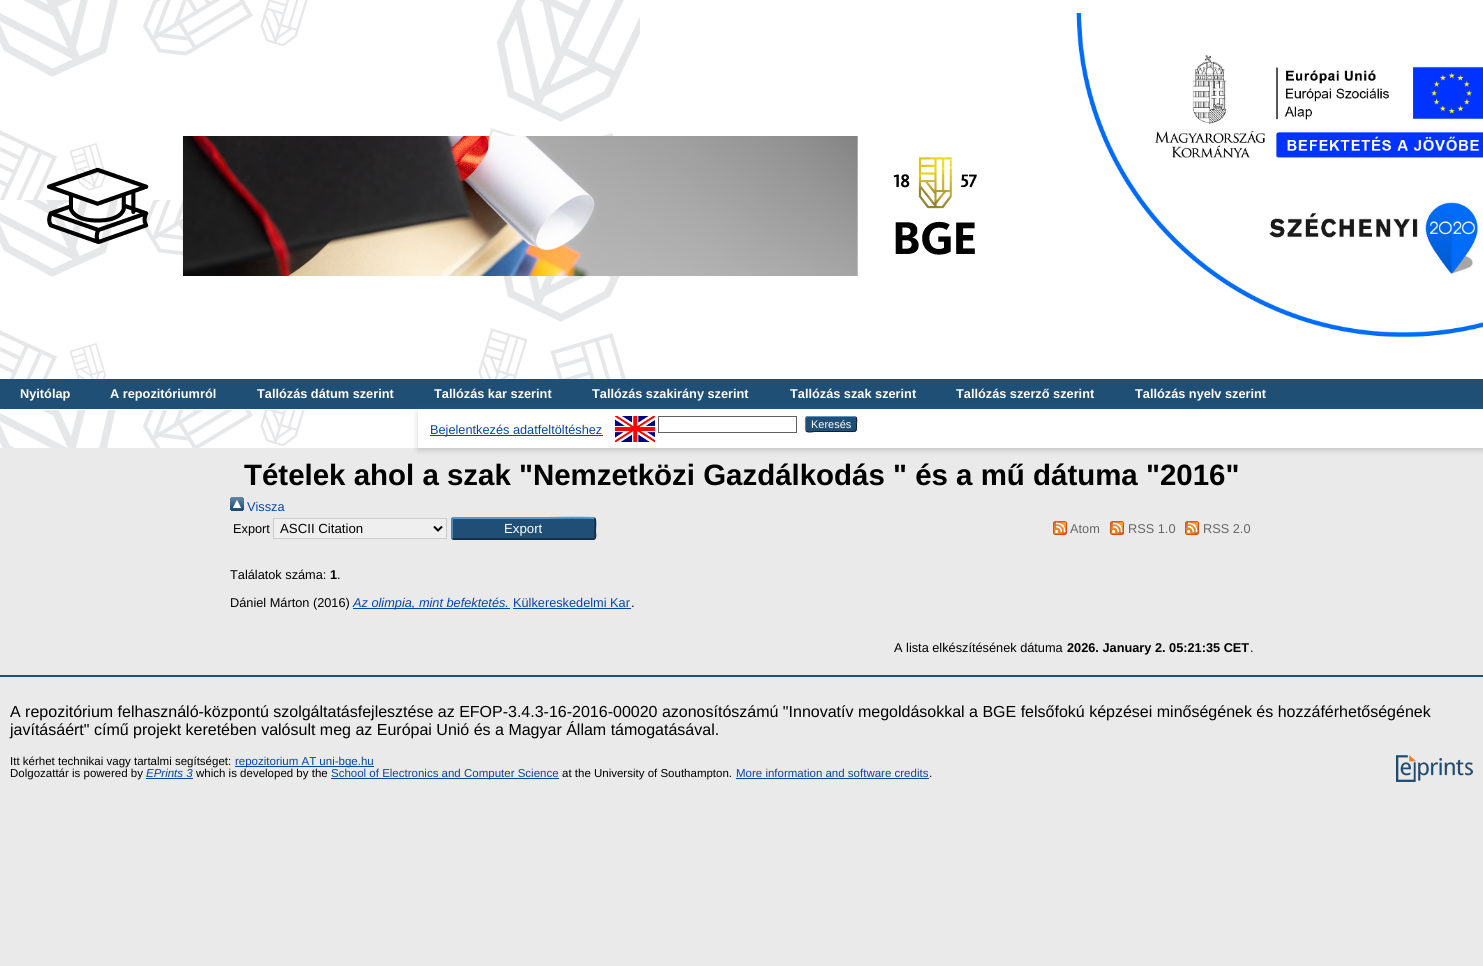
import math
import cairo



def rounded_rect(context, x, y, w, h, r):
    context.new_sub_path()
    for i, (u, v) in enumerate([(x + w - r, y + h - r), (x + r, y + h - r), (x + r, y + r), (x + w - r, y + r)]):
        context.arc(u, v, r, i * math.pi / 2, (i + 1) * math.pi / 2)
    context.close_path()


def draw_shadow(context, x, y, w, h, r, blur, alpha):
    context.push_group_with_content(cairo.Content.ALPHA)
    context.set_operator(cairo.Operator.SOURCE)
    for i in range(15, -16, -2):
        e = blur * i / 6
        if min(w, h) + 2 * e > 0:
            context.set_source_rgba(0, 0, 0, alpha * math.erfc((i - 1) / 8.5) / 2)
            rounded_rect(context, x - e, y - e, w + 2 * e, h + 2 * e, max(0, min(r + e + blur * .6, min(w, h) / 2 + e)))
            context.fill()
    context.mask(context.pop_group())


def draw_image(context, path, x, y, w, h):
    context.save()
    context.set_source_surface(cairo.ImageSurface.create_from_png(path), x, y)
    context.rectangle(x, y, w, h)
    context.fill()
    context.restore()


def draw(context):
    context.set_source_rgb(234 / 255, 234 / 255, 234 / 255)
    context.paint()
    context.set_source_rgb(1, 1, 1)
    context.rectangle(640, 0, 843, 379)
    context.fill()
    draw_image(context, "images/1.png", 0, 0, 640, 448)
    draw_image(context, "images/2.png", 46, 136, 931, 140)
    draw_image(context, "images/3.png", 1076, 13, 407, 325)
    context.set_source_rgb(32 / 255, 79 / 255, 118 / 255)
    context.rectangle(0, 379, 1483, 30)
    context.fill()
    context.set_source_rgb(1, 1, 1)
    context.rectangle(40, 409, 1443, 1)
    context.fill()
    context.set_source_rgb(100 / 255, 100 / 255, 100 / 255)
    draw_shadow(context, 418, 412, 1065, 38, 0, 3, 0.3)
    context.set_source_rgb(1, 1, 1)
    context.rectangle(418, 410, 1065, 38)
    context.fill()
    context.set_source_rgb(6 / 255, 69 / 255, 173 / 255)
    context.rectangle(430, 435, 173, 1)
    context.fill()
    draw_image(context, "images/4.png", 615, 416, 40, 26)
    context.rectangle(658.5, 416.5, 138, 16)
    context.set_source_rgb(96 / 255, 96 / 255, 96 / 255)
    context.set_line_width(1)
    context.stroke()
    context.set_source_rgb(31 / 255, 79 / 255, 118 / 255)
    rounded_rect(context, 805, 416, 52, 16, 3)
    context.fill()
    context.new_path()
    context.move_to(806, 417)
    context.line_to(808, 416.5)
    context.line_to(854, 416.5)
    context.line_to(856, 417)
    context.set_source_rgb(91 / 255, 151 / 255, 199 / 255)
    context.stroke()
    context.new_path()
    context.move_to(856, 417)
    context.curve_to(857.5, 419, 856.5, 422, 856.5, 424)
    context.curve_to(856.5, 433, 856.5, 431.5, 846.5, 431.5)
    context.line_to(815.5, 431.5)
    context.curve_to(812.5, 431.5, 808.5, 433, 806, 431)
    context.set_source_rgb(13 / 255, 33 / 255, 49 / 255)
    context.stroke()
    context.new_path()
    context.move_to(806, 431)
    context.curve_to(805, 429.5, 805.5, 425.5, 805.5, 424)
    context.curve_to(805.5, 422.5, 805, 418.5, 806, 417)
    context.set_source_rgb(82 / 255, 135 / 255, 179 / 255)
    context.stroke()
    draw_image(context, "images/5.png", 230, 497, 14, 14)
    context.set_source_rgb(239 / 255, 239 / 255, 239 / 255)
    context.rectangle(273.5, 518.5, 173, 20)
    context.fill_preserve()
    context.set_source_rgb(204 / 255, 204 / 255, 204 / 255)
    context.stroke()
    context.new_path()
    context.move_to(434, 526.5)
    context.line_to(438, 530.5)
    context.line_to(442, 526.5)
    context.set_source_rgb(0, 0, 0)
    context.set_line_width(2)
    context.stroke()
    context.set_source_rgb(31 / 255, 79 / 255, 118 / 255)
    rounded_rect(context, 451, 517, 145, 23, 3)
    context.fill()
    context.new_path()
    context.move_to(452.5, 518.5)
    context.line_to(454, 518)
    context.line_to(546.5, 518)
    context.curve_to(549.5, 518, 593, 517, 594.5, 518.5)
    context.set_source_rgb(91 / 255, 151 / 255, 199 / 255)
    context.stroke()
    context.new_path()
    context.move_to(594.5, 518.5)
    context.curve_to(596, 520, 595, 529, 595, 531.5)
    context.curve_to(595, 533, 596.5, 538, 593.5, 539)
    context.line_to(454, 539)
    context.line_to(452.5, 538.5)
    context.set_source_rgb(19 / 255, 50 / 255, 74 / 255)
    context.stroke()
    context.new_path()
    context.move_to(452.5, 538.5)
    context.curve_to(452, 538, 452, 537.5, 452, 537)
    context.line_to(452, 520)
    context.curve_to(452, 519.5, 452, 519, 452.5, 518.5)
    context.set_source_rgb(82 / 255, 135 / 255, 179 / 255)
    context.stroke()
    draw_image(context, "images/6.png", 1053, 521, 14, 14)
    draw_image(context, "images/6.png", 1110, 521, 14, 14)
    draw_image(context, "images/6.png", 1185, 521, 14, 14)
    context.set_source_rgb(6 / 255, 69 / 255, 173 / 255)
    context.rectangle(353, 608, 157, 1)
    context.fill()
    context.rectangle(513, 608, 118, 1)
    context.fill()
    context.set_source_rgb(32 / 255, 79 / 255, 118 / 255)
    context.rectangle(0, 675, 1483, 2)
    context.fill()
    context.set_source_rgb(6 / 255, 69 / 255, 173 / 255)
    context.rectangle(235, 766, 139, 1)
    context.fill()
    context.rectangle(146, 778, 47, 1)
    context.fill()
    context.rectangle(331, 778, 228, 1)
    context.fill()
    context.rectangle(736, 778, 193, 1)
    context.fill()
    draw_image(context, "images/7.png", 1396, 755, 77, 27)
    context.select_font_face("Liberation Sans", cairo.FontSlant.NORMAL, cairo.FontWeight.BOLD)
    context.set_font_size(12.75)
    context.set_source_rgb(1, 1, 1)
    context.move_to(20, 398)
    context.show_text("Nyitólap")
    context.move_to(110, 398)
    context.show_text("A repozitóriumról")
    context.move_to(257, 398)
    context.show_text("Tallózás dátum szerint")
    context.move_to(434, 398)
    context.show_text("Tallózás kar szerint")
    context.move_to(592, 398)
    context.show_text("Tallózás szakirány szerint")
    context.move_to(790, 398)
    context.show_text("Tallózás szak szerint")
    context.move_to(956, 398)
    context.show_text("Tallózás szerző szerint")
    context.move_to(1135, 398)
    context.show_text("Tallózás nyelv szerint")
    context.select_font_face("Liberation Sans")
    context.set_source_rgb(6 / 255, 69 / 255, 173 / 255)
    context.move_to(430, 434)
    context.show_text("Bejelentkezés adatfeltöltéshez")
    context.set_font_size(11)
    context.set_source_rgb(1, 1, 1)
    context.move_to(811, 428)
    context.show_text("Keresés")
    context.select_font_face("Liberation Sans", cairo.FontSlant.NORMAL, cairo.FontWeight.BOLD)
    context.set_font_size(29.45)
    context.set_source_rgb(0, 0, 0)
    context.move_to(244, 485)
    context.show_text("Tételek ahol a szak \"Nemzetközi Gazdálkodás \" és a mű dátuma \"2016\"")
    context.select_font_face("Liberation Sans")
    context.set_font_size(12.75)
    context.set_source_rgb(6 / 255, 69 / 255, 173 / 255)
    context.move_to(247, 511)
    context.show_text("Vissza")
    context.set_source_rgb(0, 0, 0)
    context.move_to(233, 533)
    context.show_text("Export")
    context.set_font_size(13.25)
    context.move_to(280, 533)
    context.show_text("ASCII Citation")
    context.set_source_rgb(1, 1, 1)
    context.move_to(504, 533)
    context.show_text("Export")
    context.set_font_size(12.75)
    context.set_source_rgb(102 / 255, 102 / 255, 102 / 255)
    context.move_to(1070, 533)
    context.show_text("Atom")
    context.move_to(1128, 533)
    context.show_text("RSS 1.0")
    context.move_to(1203, 533)
    context.show_text("RSS 2.0")
    context.set_source_rgb(0, 0, 0)
    context.move_to(230, 579)
    context.show_text("Találatok száma:")
    context.select_font_face("Liberation Sans", cairo.FontSlant.NORMAL, cairo.FontWeight.BOLD)
    context.move_to(330, 579)
    context.show_text("1")
    context.select_font_face("Liberation Sans")
    context.move_to(337, 579)
    context.show_text(".")
    context.move_to(230, 607)
    context.show_text("Dániel Márton (2016)")
    context.select_font_face("Liberation Sans", cairo.FontSlant.ITALIC)
    context.set_source_rgb(6 / 255, 69 / 255, 173 / 255)
    context.move_to(353, 607)
    context.show_text("Az olimpia, mint befektetés.")
    context.select_font_face("Liberation Sans")
    context.move_to(513, 607)
    context.show_text("Külkereskedelmi Kar")
    context.set_source_rgb(0, 0, 0)
    context.move_to(631, 607)
    context.show_text(".")
    context.move_to(894, 652)
    context.show_text("A lista elkészítésének dátuma")
    context.select_font_face("Liberation Sans", cairo.FontSlant.NORMAL, cairo.FontWeight.BOLD)
    context.move_to(1067, 652)
    context.show_text("2026. January 2. 05:21:35 CET")
    context.select_font_face("Liberation Sans")
    context.move_to(1250, 652)
    context.show_text(".")
    context.set_font_size(16)
    context.move_to(10, 717)
    context.show_text("A repozitórium felhasználó-központú szolgáltatásfejlesztése az EFOP-3.4.3-16-2016-00020 azonosítószámú \"Innovatív megoldásokkal a BGE felsőfokú képzései minőségének és hozzáférhetőségének")
    context.move_to(10, 735)
    context.show_text("javításáért\" című projekt keretében valósult meg az Európai Unió és a Magyar Állam támogatásával.")
    context.set_font_size(11.5)
    context.move_to(10, 765)
    context.show_text("Itt kérhet technikai vagy tartalmi segítséget:")
    context.set_source_rgb(6 / 255, 69 / 255, 173 / 255)
    context.move_to(235, 765)
    context.show_text("repozitorium AT uni-bge.hu")
    context.set_source_rgb(0, 0, 0)
    context.move_to(10, 777)
    context.show_text("Dolgozattár is powered by")
    context.select_font_face("Liberation Sans", cairo.FontSlant.ITALIC)
    context.set_source_rgb(6 / 255, 69 / 255, 173 / 255)
    context.move_to(146, 777)
    context.show_text("EPrints 3")
    context.select_font_face("Liberation Sans")
    context.set_source_rgb(0, 0, 0)
    context.move_to(196, 777)
    context.show_text("which is developed by the")
    context.set_source_rgb(6 / 255, 69 / 255, 173 / 255)
    context.move_to(331, 777)
    context.show_text("School of Electronics and Computer Science")
    context.set_source_rgb(0, 0, 0)
    context.move_to(562, 777)
    context.show_text("at the University of Southampton.")
    context.set_source_rgb(6 / 255, 69 / 255, 173 / 255)
    context.move_to(736, 777)
    context.show_text("More information and software credits")
    context.set_source_rgb(0, 0, 0)
    context.move_to(929, 777)
    context.show_text(".")


surface = cairo.ImageSurface(cairo.Format.RGB24, 1483, 966)
context = cairo.Context(surface)
options = cairo.FontOptions()
options.set_hint_metrics(cairo.HintMetrics.OFF)
options.set_hint_style(cairo.HintStyle.NONE)
context.set_font_options(options)
context.set_miter_limit(4)
draw(context)
surface.write_to_png("out.png")
